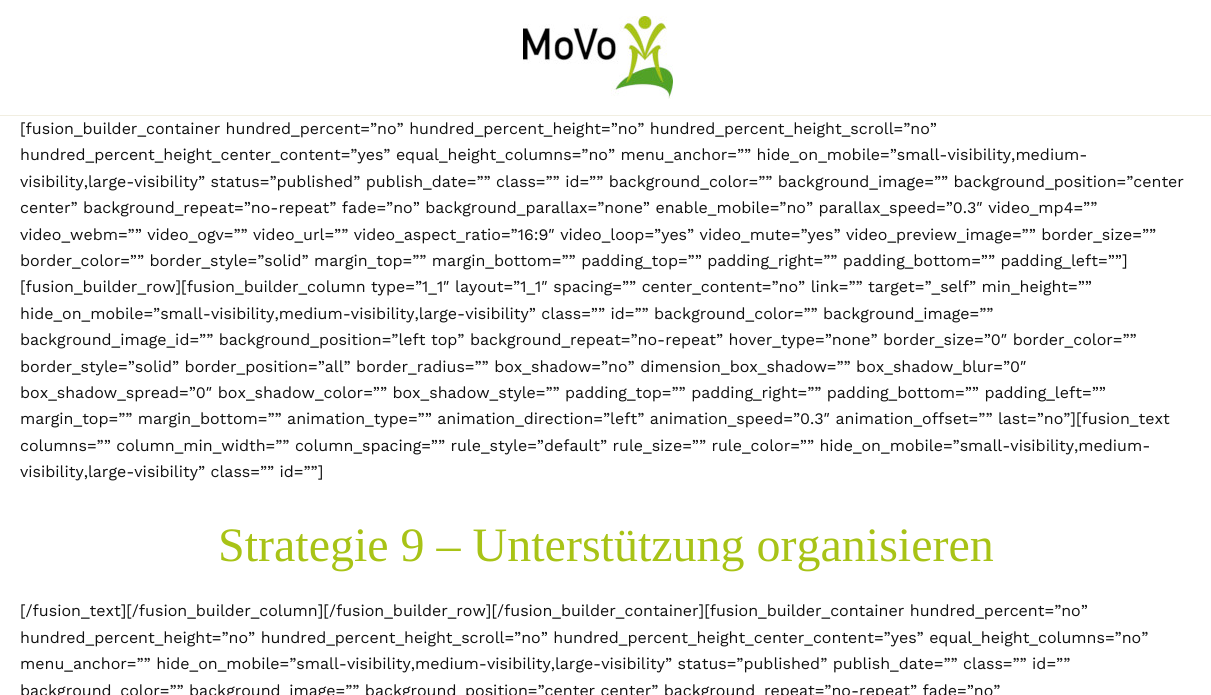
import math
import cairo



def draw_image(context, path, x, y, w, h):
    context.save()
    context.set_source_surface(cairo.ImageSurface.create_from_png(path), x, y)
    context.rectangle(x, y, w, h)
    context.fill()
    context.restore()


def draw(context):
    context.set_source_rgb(1, 1, 1)
    context.paint()
    context.set_source_rgb(241 / 255, 238 / 255, 225 / 255)
    context.rectangle(0, 115, 1211, 1)
    context.fill()
    draw_image(context, "images/1.png", 523, 16, 150, 83)
    context.select_font_face("Work Sans")
    context.set_font_size(16)
    context.set_source_rgb(17 / 255, 17 / 255, 17 / 255)
    context.move_to(20, 134)
    context.show_text("[fusion_builder_container hundred_percent=”no” hundred_percent_height=”no” hundred_percent_height_scroll=”no”")
    context.move_to(20, 160)
    context.show_text("hundred_percent_height_center_content=”yes” equal_height_columns=”no” menu_anchor=”” hide_on_mobile=”small-visibility,medium-")
    context.move_to(20, 187)
    context.show_text("visibility,large-visibility” status=”published” publish_date=”” class=”” id=”” background_color=”” background_image=”” background_position=”center")
    context.move_to(20, 213)
    context.show_text("center” background_repeat=”no-repeat” fade=”no” background_parallax=”none” enable_mobile=”no” parallax_speed=”0.3″ video_mp4=””")
    context.move_to(20, 240)
    context.show_text("video_webm=”” video_ogv=”” video_url=”” video_aspect_ratio=”16:9″ video_loop=”yes” video_mute=”yes” video_preview_image=”” border_size=””")
    context.move_to(20, 266)
    context.show_text("border_color=”” border_style=”solid” margin_top=”” margin_bottom=”” padding_top=”” padding_right=”” padding_bottom=”” padding_left=””]")
    context.move_to(20, 292)
    context.show_text("[fusion_builder_row][fusion_builder_column type=”1_1″ layout=”1_1″ spacing=”” center_content=”no” link=”” target=”_self” min_height=””")
    context.move_to(20, 319)
    context.show_text("hide_on_mobile=”small-visibility,medium-visibility,large-visibility” class=”” id=”” background_color=”” background_image=””")
    context.move_to(20, 345)
    context.show_text("background_image_id=”” background_position=”left top” background_repeat=”no-repeat” hover_type=”none” border_size=”0″ border_color=””")
    context.move_to(20, 372)
    context.show_text("border_style=”solid” border_position=”all” border_radius=”” box_shadow=”no” dimension_box_shadow=”” box_shadow_blur=”0″")
    context.move_to(20, 398)
    context.show_text("box_shadow_spread=”0″ box_shadow_color=”” box_shadow_style=”” padding_top=”” padding_right=”” padding_bottom=”” padding_left=””")
    context.move_to(20, 424)
    context.show_text("margin_top=”” margin_bottom=”” animation_type=”” animation_direction=”left” animation_speed=”0.3″ animation_offset=”” last=”no”][fusion_text")
    context.move_to(20, 451)
    context.show_text("columns=”” column_min_width=”” column_spacing=”” rule_style=”default” rule_size=”” rule_color=”” hide_on_mobile=”small-visibility,medium-")
    context.move_to(20, 477)
    context.show_text("visibility,large-visibility” class=”” id=””]")
    context.select_font_face("Liberation Serif")
    context.set_font_size(48)
    context.set_source_rgb(168 / 255, 195 / 255, 22 / 255)
    context.move_to(218, 561)
    context.show_text("Strategie 9 – Unterstützung organisieren")
    context.select_font_face("Work Sans")
    context.set_font_size(16)
    context.set_source_rgb(17 / 255, 17 / 255, 17 / 255)
    context.move_to(20, 616)
    context.show_text("[/fusion_text][/fusion_builder_column][/fusion_builder_row][/fusion_builder_container][fusion_builder_container hundred_percent=”no”")
    context.move_to(20, 643)
    context.show_text("hundred_percent_height=”no” hundred_percent_height_scroll=”no” hundred_percent_height_center_content=”yes” equal_height_columns=”no”")
    context.move_to(20, 669)
    context.show_text("menu_anchor=”” hide_on_mobile=”small-visibility,medium-visibility,large-visibility” status=”published” publish_date=”” class=”” id=””")
    context.move_to(20, 696)
    context.show_text("background_color=”” background_image=”” background_position=”center center” background_repeat=”no-repeat” fade=”no”")


surface = cairo.ImageSurface(cairo.Format.RGB24, 1211, 695)
context = cairo.Context(surface)
options = cairo.FontOptions()
options.set_hint_metrics(cairo.HintMetrics.OFF)
options.set_hint_style(cairo.HintStyle.NONE)
context.set_font_options(options)
context.set_miter_limit(4)
draw(context)
surface.write_to_png("out.png")
